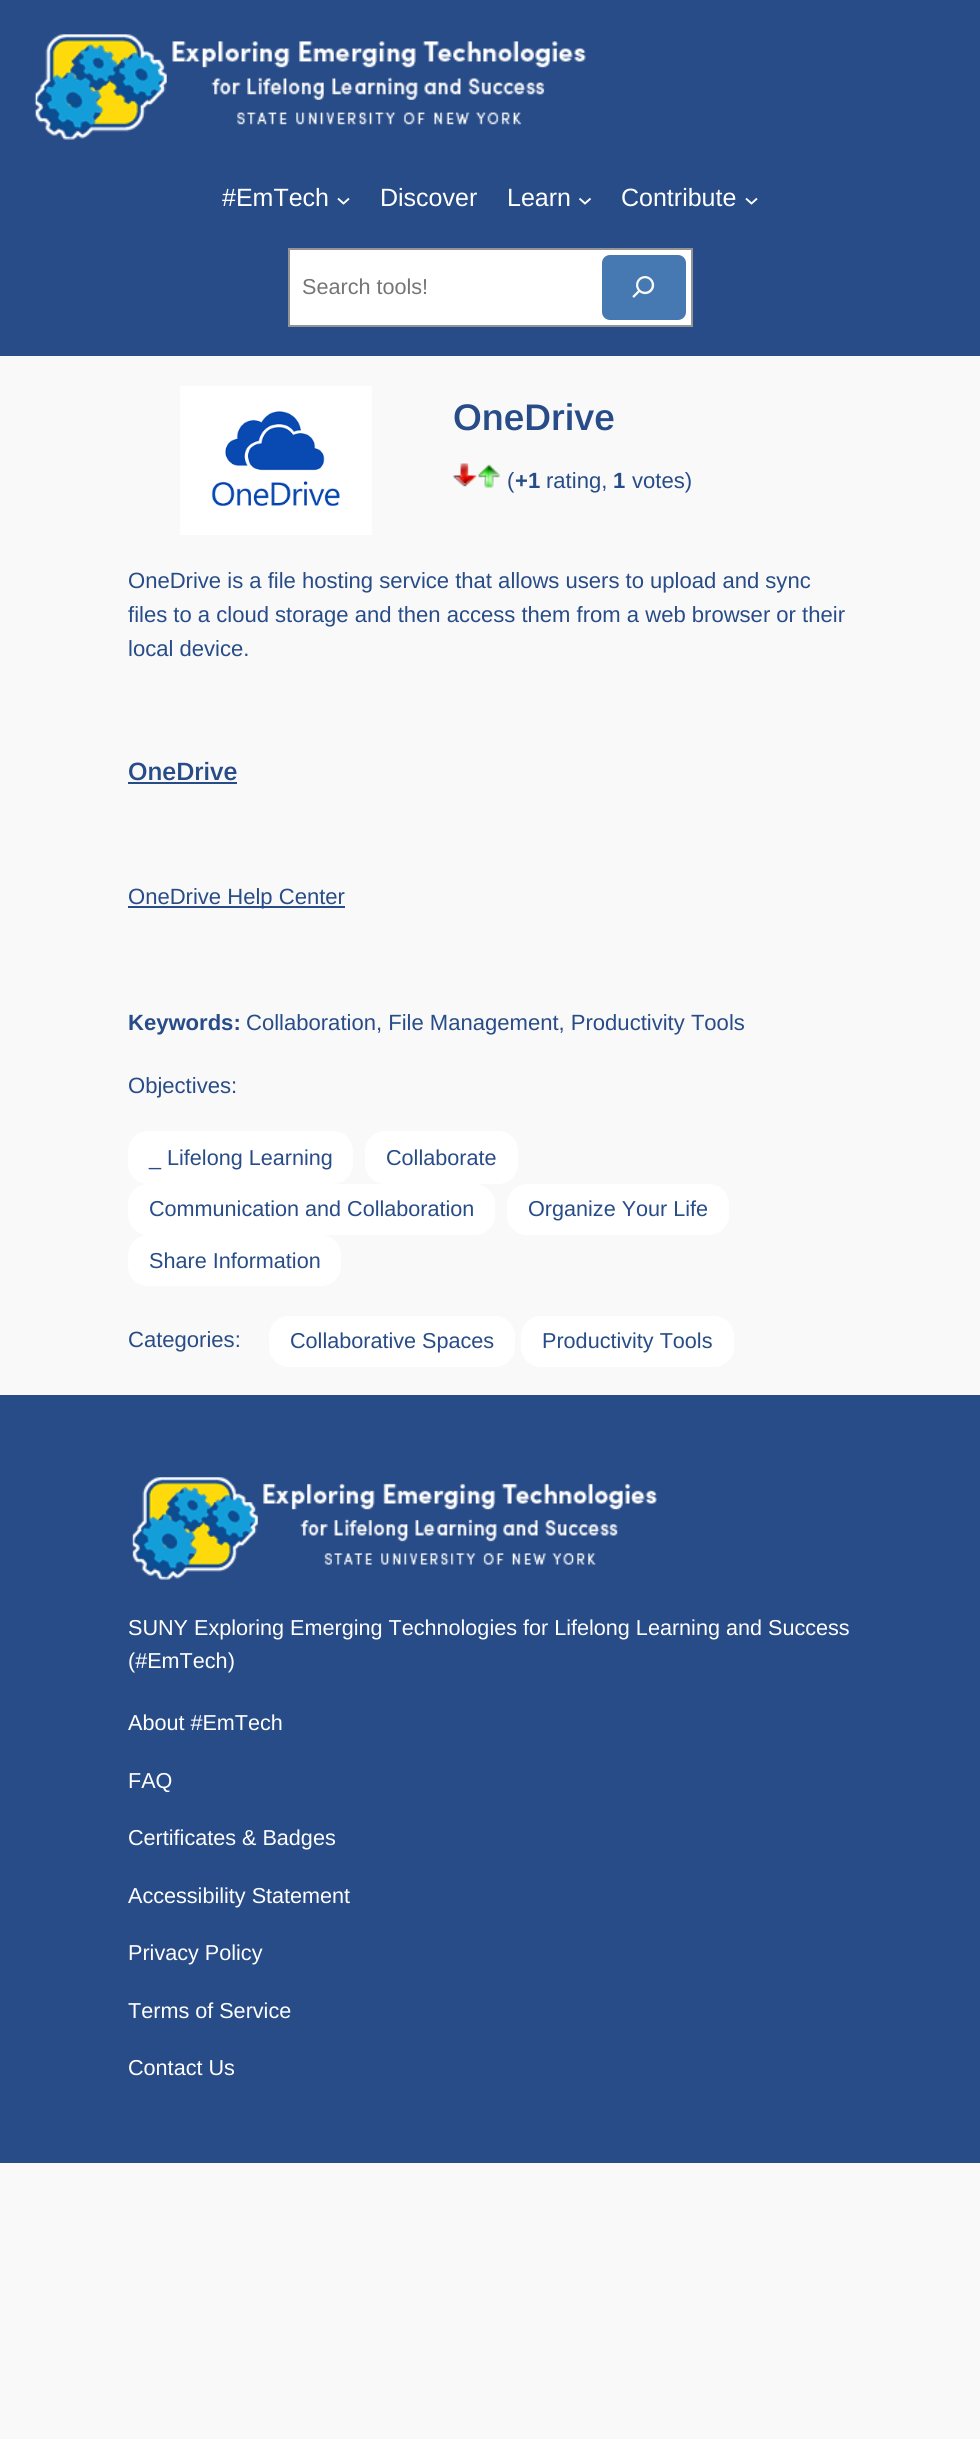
import math
import cairo



def rounded_rect(context, x, y, w, h, r):
    context.new_sub_path()
    for i, (u, v) in enumerate([(x + w - r, y + h - r), (x + r, y + h - r), (x + r, y + r), (x + w - r, y + r)]):
        context.arc(u, v, r, i * math.pi / 2, (i + 1) * math.pi / 2)
    context.close_path()


def draw_image(context, path, x, y, w, h):
    context.save()
    context.set_source_surface(cairo.ImageSurface.create_from_png(path), x, y)
    context.rectangle(x, y, w, h)
    context.fill()
    context.restore()


def draw(context):
    context.set_source_rgb(249 / 255, 249 / 255, 249 / 255)
    context.paint()
    context.set_source_rgb(40 / 255, 76 / 255, 136 / 255)
    context.rectangle(0, 0, 980, 356)
    context.fill()
    draw_image(context, "images/1.png", 34, 34, 552, 106)
    context.new_path()
    context.move_to(338, 198.5)
    context.line_to(343.5, 203.5)
    context.line_to(349, 198.5)
    context.set_source_rgb(1, 1, 1)
    context.set_line_width(1.9)
    context.stroke()
    context.new_path()
    context.move_to(579.5, 198.5)
    context.line_to(585, 203.5)
    context.line_to(590.5, 198.5)
    context.stroke()
    context.new_path()
    context.move_to(746, 198.5)
    context.line_to(751.5, 203.5)
    context.line_to(757, 198.5)
    context.stroke()
    context.rectangle(289, 249, 403, 77)
    context.fill_preserve()
    context.set_source_rgb(148 / 255, 148 / 255, 148 / 255)
    context.set_line_width(2)
    context.stroke()
    context.set_source_rgb(70 / 255, 120 / 255, 178 / 255)
    rounded_rect(context, 602, 255, 84, 65, 8)
    context.fill()
    draw_image(context, "images/2.png", 632, 276, 23, 22)
    draw_image(context, "images/3.png", 180, 386, 192, 149)
    draw_image(context, "images/4.png", 453, 463, 24, 24)
    draw_image(context, "images/5.png", 478, 464, 22, 24)
    context.set_source_rgb(40 / 255, 76 / 255, 136 / 255)
    context.rectangle(128, 782, 109, 2)
    context.fill()
    context.rectangle(128, 906, 217, 2)
    context.fill()
    context.set_source_rgb(1, 1, 1)
    rounded_rect(context, 128, 1131, 225, 53, 20)
    context.fill()
    rounded_rect(context, 365, 1131, 153, 53, 20)
    context.fill()
    rounded_rect(context, 128, 1184, 367, 51, 20)
    context.fill()
    rounded_rect(context, 507, 1184, 222, 51, 20)
    context.fill()
    rounded_rect(context, 128, 1235, 213, 51, 20)
    context.fill()
    rounded_rect(context, 269, 1316, 246, 51, 20)
    context.fill()
    rounded_rect(context, 521, 1316, 213, 51, 20)
    context.fill()
    context.set_source_rgb(40 / 255, 76 / 255, 136 / 255)
    context.rectangle(0, 1395, 980, 768)
    context.fill()
    draw_image(context, "images/6.png", 131, 1477, 526, 103)
    context.select_font_face("Liberation Sans")
    context.set_font_size(25)
    context.set_source_rgb(1, 1, 1)
    context.move_to(222, 206)
    context.show_text("#EmTech")
    context.move_to(380, 206)
    context.show_text("Discover")
    context.move_to(507, 206)
    context.show_text("Learn")
    context.move_to(621, 206)
    context.show_text("Contribute")
    context.set_font_size(21.6)
    context.set_source_rgb(117 / 255, 117 / 255, 117 / 255)
    context.move_to(302, 294)
    context.show_text("Search tools!")
    context.select_font_face("Arimo SemiBold")
    context.set_font_size(37)
    context.set_source_rgb(40 / 255, 76 / 255, 136 / 255)
    context.move_to(453, 430)
    context.show_text("OneDrive")
    context.select_font_face("Arimo")
    context.set_font_size(22.05)
    context.move_to(507, 488)
    context.show_text("(")
    context.select_font_face("Arimo", cairo.FontSlant.NORMAL, cairo.FontWeight.BOLD)
    context.move_to(515, 488)
    context.show_text("+1")
    context.select_font_face("Arimo")
    context.move_to(546, 488)
    context.show_text("rating,")
    context.select_font_face("Arimo", cairo.FontSlant.NORMAL, cairo.FontWeight.BOLD)
    context.move_to(613, 488)
    context.show_text("1")
    context.select_font_face("Arimo")
    context.move_to(632, 488)
    context.show_text("votes)")
    context.move_to(128, 588)
    context.show_text("OneDrive is a file hosting service that allows users to upload and sync")
    context.move_to(128, 622)
    context.show_text("files to a cloud storage and then access them from a web browser or their")
    context.move_to(128, 656)
    context.show_text("local device.")
    context.select_font_face("Arimo SemiBold")
    context.set_font_size(25)
    context.move_to(128, 780)
    context.show_text("OneDrive")
    context.select_font_face("Arimo")
    context.set_font_size(22.05)
    context.move_to(128, 904)
    context.show_text("OneDrive Help Center")
    context.select_font_face("Arimo", cairo.FontSlant.NORMAL, cairo.FontWeight.BOLD)
    context.move_to(128, 1030)
    context.show_text("Keywords:")
    context.select_font_face("Arimo")
    context.move_to(246, 1030)
    context.show_text("Collaboration, File Management, Productivity Tools")
    context.move_to(128, 1093)
    context.show_text("Objectives:")
    context.set_font_size(21.6)
    context.move_to(149, 1165)
    context.show_text("_ Lifelong Learning")
    context.move_to(386, 1165)
    context.show_text("Collaborate")
    context.move_to(149, 1216)
    context.show_text("Communication and Collaboration")
    context.move_to(528, 1216)
    context.show_text("Organize Your Life")
    context.move_to(149, 1268)
    context.show_text("Share Information")
    context.set_font_size(22.05)
    context.move_to(128, 1347)
    context.show_text("Categories:")
    context.set_font_size(21.6)
    context.move_to(290, 1348)
    context.show_text("Collaborative Spaces")
    context.move_to(542, 1348)
    context.show_text("Productivity Tools")
    context.set_source_rgb(1, 1, 1)
    context.move_to(128, 1635)
    context.show_text("SUNY Exploring Emerging Technologies for Lifelong Learning and Success")
    context.move_to(128, 1668)
    context.show_text("(#EmTech)")
    context.move_to(128, 1730)
    context.show_text("About #EmTech")
    context.move_to(128, 1788)
    context.show_text("FAQ")
    context.move_to(128, 1845)
    context.show_text("Certificates & Badges")
    context.move_to(128, 1903)
    context.show_text("Accessibility Statement")
    context.move_to(128, 1960)
    context.show_text("Privacy Policy")
    context.move_to(128, 2018)
    context.show_text("Terms of Service")
    context.move_to(128, 2075)
    context.show_text("Contact Us")


surface = cairo.ImageSurface(cairo.Format.RGB24, 980, 2439)
context = cairo.Context(surface)
options = cairo.FontOptions()
options.set_hint_metrics(cairo.HintMetrics.OFF)
options.set_hint_style(cairo.HintStyle.NONE)
context.set_font_options(options)
context.set_miter_limit(4)
draw(context)
surface.write_to_png("out.png")
